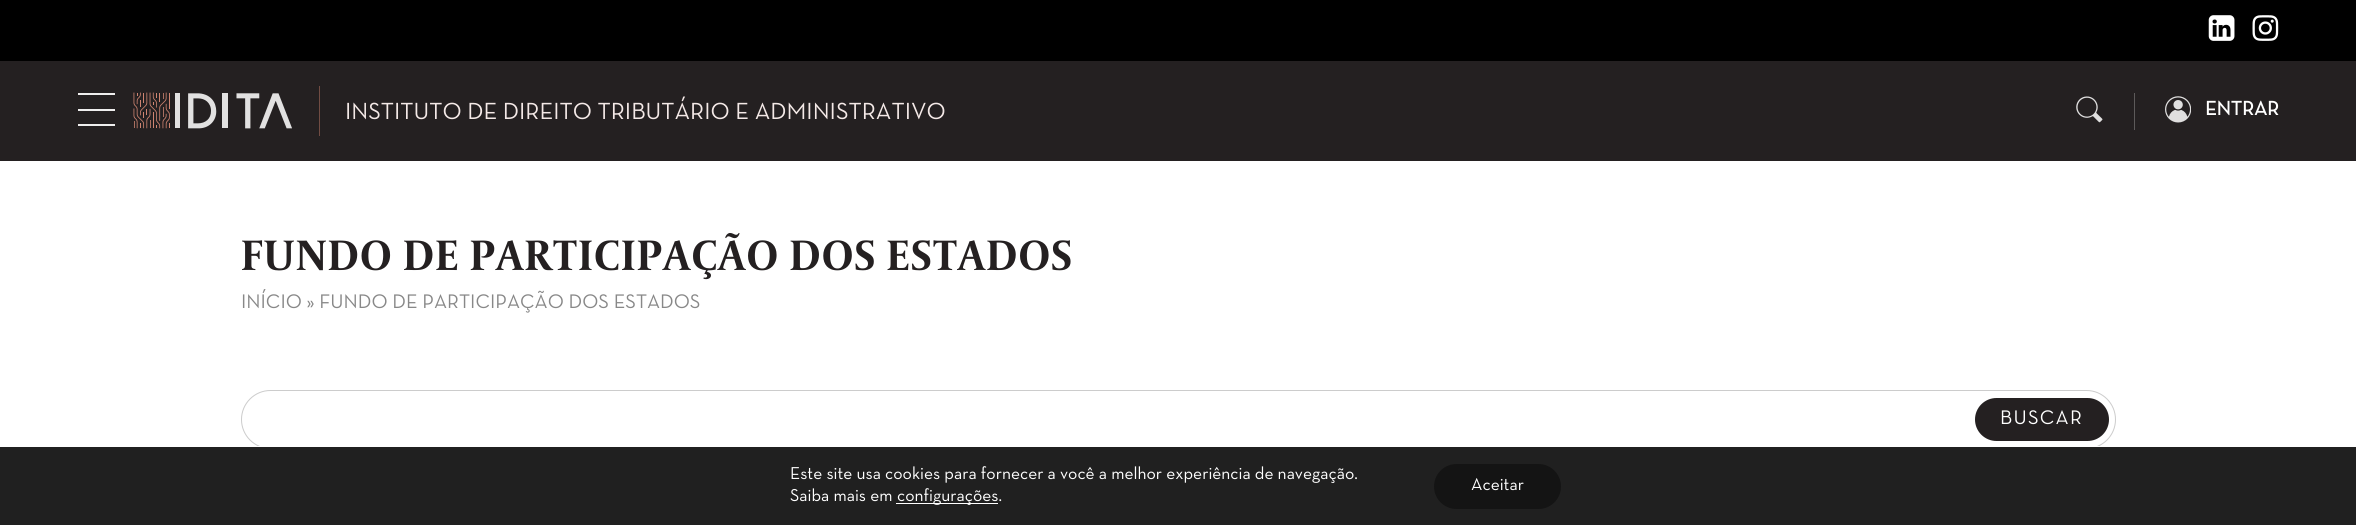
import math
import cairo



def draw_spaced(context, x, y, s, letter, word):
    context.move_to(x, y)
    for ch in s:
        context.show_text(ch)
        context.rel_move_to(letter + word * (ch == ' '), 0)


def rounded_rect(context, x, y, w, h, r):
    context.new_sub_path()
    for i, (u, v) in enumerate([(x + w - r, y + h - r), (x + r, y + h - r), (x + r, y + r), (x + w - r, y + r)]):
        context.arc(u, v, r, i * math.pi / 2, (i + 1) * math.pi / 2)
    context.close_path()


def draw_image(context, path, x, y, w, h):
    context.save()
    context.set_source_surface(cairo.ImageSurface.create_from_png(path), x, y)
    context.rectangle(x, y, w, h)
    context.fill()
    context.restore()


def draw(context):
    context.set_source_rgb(1, 1, 1)
    context.paint()
    context.set_source_rgb(0, 0, 0)
    context.rectangle(0, 0, 2356, 61)
    context.fill()
    draw_image(context, "images/1.png", 2208, 15, 27, 26)
    draw_image(context, "images/2.png", 2252, 15, 27, 26)
    context.set_source_rgb(36 / 255, 32 / 255, 33 / 255)
    context.rectangle(0, 61, 2356, 100)
    context.fill()
    context.set_source_rgb(239 / 255, 238 / 255, 238 / 255)
    context.rectangle(78, 93, 37, 2)
    context.fill()
    context.rectangle(78, 109, 37, 2)
    context.fill()
    context.rectangle(78, 124, 37, 2)
    context.fill()
    context.set_source_rgb(113 / 255, 76 / 255, 67 / 255)
    context.rectangle(319, 86, 1, 50)
    context.fill()
    draw_image(context, "images/3.png", 133, 92, 159, 37)
    context.set_source_rgb(93 / 255, 90 / 255, 90 / 255)
    context.rectangle(2134, 93, 1, 37)
    context.fill()
    draw_image(context, "images/4.png", 2076, 96, 27, 27)
    draw_image(context, "images/5.png", 2165, 96, 26, 27)
    rounded_rect(context, 241.5, 390.5, 1874, 58, 29)
    context.set_source_rgb(204 / 255, 204 / 255, 204 / 255)
    context.set_line_width(1)
    context.stroke()
    context.set_source_rgb(36 / 255, 32 / 255, 33 / 255)
    rounded_rect(context, 1975, 398, 134, 43, 21.5)
    context.fill()
    context.set_source_rgb(32 / 255, 32 / 255, 32 / 255)
    context.rectangle(0, 447, 2356, 78)
    context.fill()
    context.set_source_rgb(1, 1, 1)
    context.rectangle(258, 446, 1841, 1)
    context.fill()
    context.rectangle(896, 503, 102, 1)
    context.fill()
    context.set_source_rgb(20 / 255, 20 / 255, 20 / 255)
    rounded_rect(context, 1434, 464, 127, 45, 22.5)
    context.fill()
    context.select_font_face("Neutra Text")
    context.set_font_size(23.75)
    context.set_source_rgb(244 / 255, 233 / 255, 231 / 255)
    context.move_to(345, 119)
    context.show_text("INSTITUTO DE DIREITO TRIBUTÁRIO E ADMINISTRATIVO")
    context.select_font_face("Neutra Text", cairo.FontSlant.NORMAL, cairo.FontWeight.BOLD)
    context.set_font_size(20)
    context.set_source_rgb(1, 1, 1)
    context.move_to(2205, 115)
    context.show_text("ENTRAR")
    context.select_font_face("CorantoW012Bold", cairo.FontSlant.NORMAL, cairo.FontWeight.BOLD)
    context.set_font_size(42)
    context.set_source_rgb(36 / 255, 32 / 255, 33 / 255)
    draw_spaced(context, 241, 270, "FUNDO DE PARTICIPAÇÃO DOS ESTADOS", 1.25, 0)
    context.select_font_face("Neutra Text")
    context.set_font_size(20)
    context.set_source_rgb(136 / 255, 136 / 255, 136 / 255)
    context.move_to(241, 308)
    context.show_text("INÍCIO » FUNDO DE PARTICIPAÇÃO DOS ESTADOS")
    context.set_source_rgb(1, 1, 1)
    draw_spaced(context, 2000, 424, "BUSCAR", 1.25, 0)
    context.set_font_size(17.5)
    context.move_to(790, 479)
    context.show_text("Este site usa cookies para fornecer a você a melhor experiência de navegação.")
    context.move_to(790, 501)
    context.show_text("Saiba mais em")
    context.move_to(897, 501)
    context.show_text("configurações.")
    context.move_to(1471, 490)
    context.show_text("Aceitar")


surface = cairo.ImageSurface(cairo.Format.RGB24, 2356, 525)
context = cairo.Context(surface)
options = cairo.FontOptions()
options.set_hint_metrics(cairo.HintMetrics.OFF)
options.set_hint_style(cairo.HintStyle.NONE)
context.set_font_options(options)
context.set_miter_limit(4)
draw(context)
surface.write_to_png("out.png")
